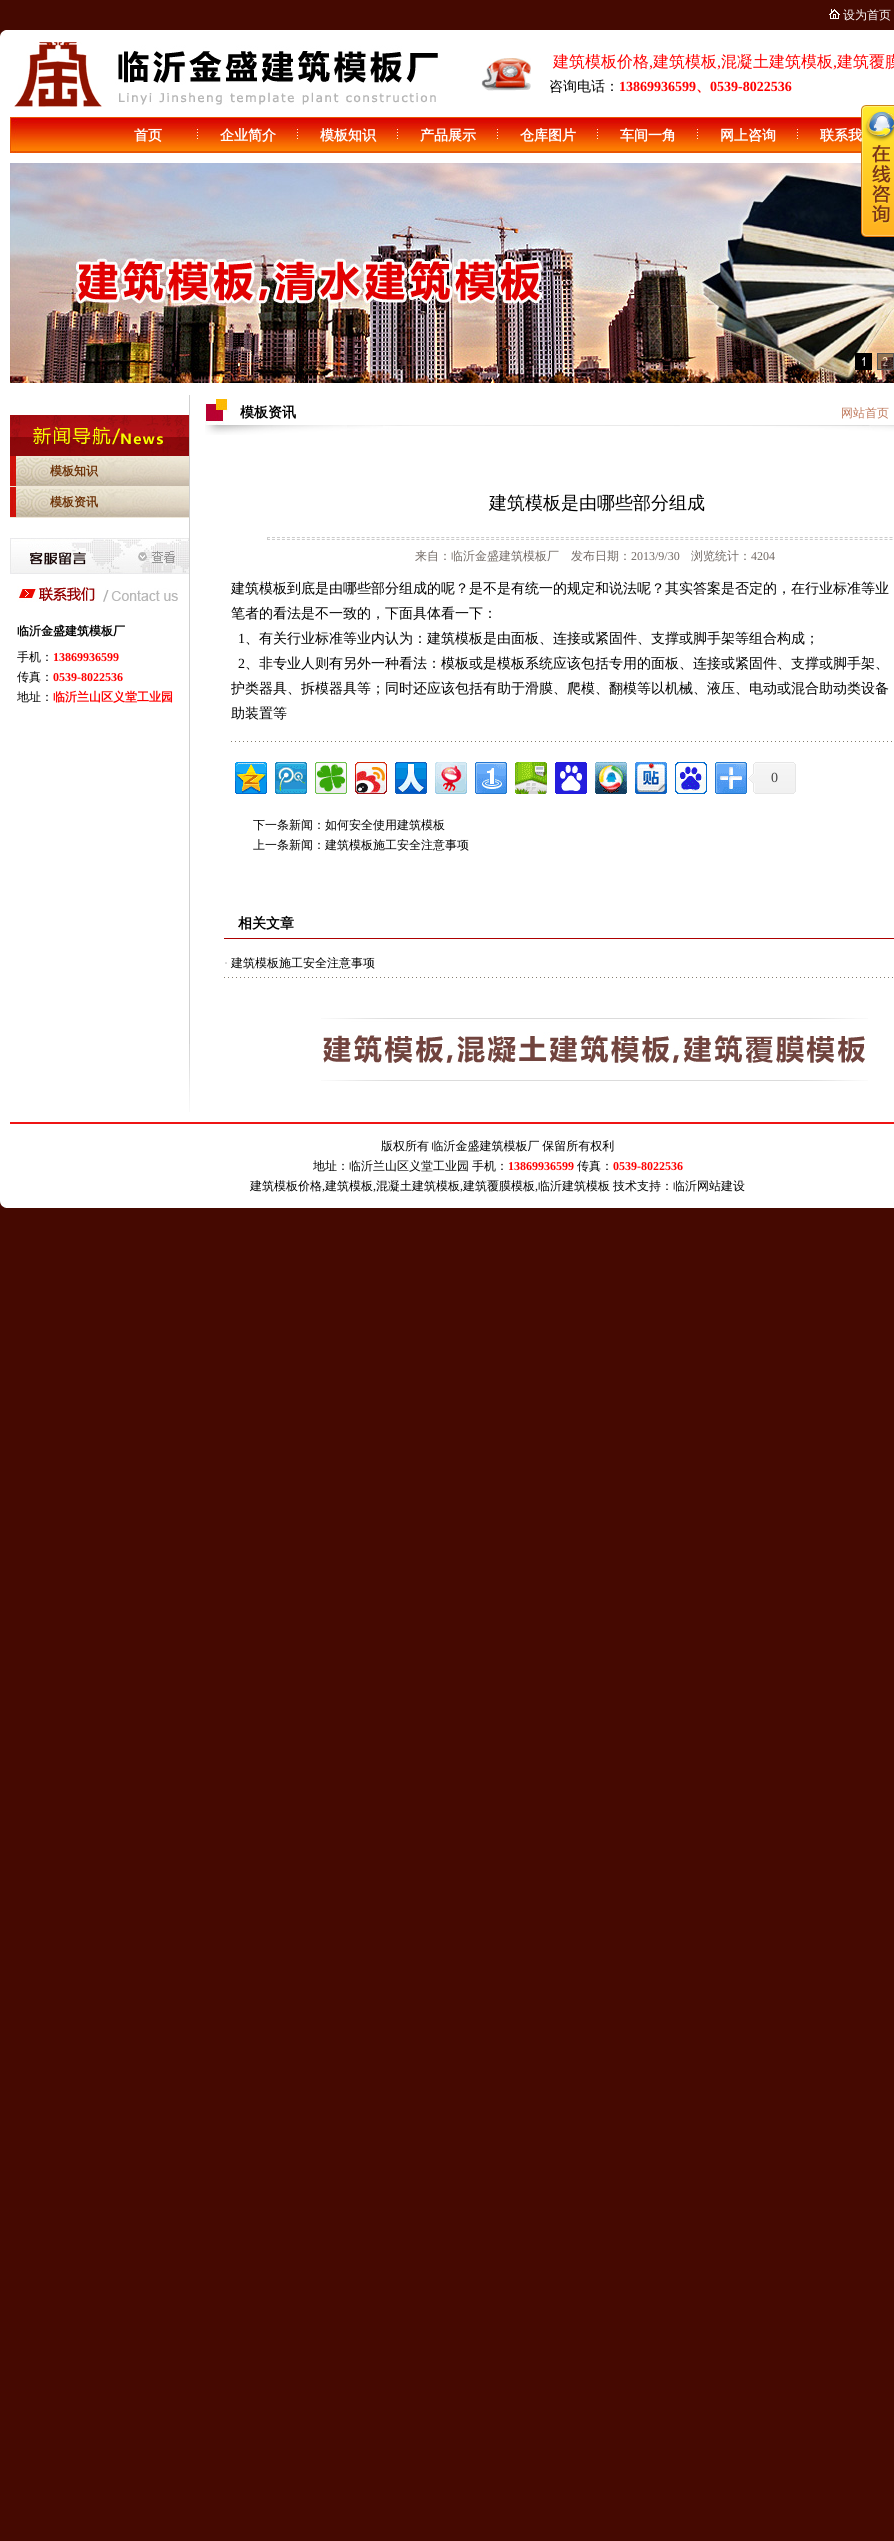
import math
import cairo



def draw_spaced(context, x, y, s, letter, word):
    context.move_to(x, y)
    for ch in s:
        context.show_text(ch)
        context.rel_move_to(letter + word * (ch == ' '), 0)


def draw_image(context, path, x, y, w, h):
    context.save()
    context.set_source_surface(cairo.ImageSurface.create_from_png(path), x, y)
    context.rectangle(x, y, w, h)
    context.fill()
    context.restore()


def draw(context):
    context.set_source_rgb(69 / 255, 9 / 255, 1 / 255)
    context.paint()
    draw_image(context, "images/1.png", 829, 9, 11, 10)
    draw_image(context, "images/2.png", 0, 30, 894, 7)
    context.set_source_rgb(1, 1, 1)
    context.rectangle(0, 37, 894, 1164)
    context.fill()
    draw_image(context, "images/3.png", 14, 42, 424, 65)
    draw_image(context, "images/4.png", 481, 58, 50, 33)
    draw_image(context, "images/5.png", 10, 117, 851, 36)
    draw_image(context, "images/6.png", 191, 125, 7, 16)
    draw_image(context, "images/6.png", 291, 125, 7, 16)
    draw_image(context, "images/6.png", 391, 125, 7, 16)
    draw_image(context, "images/6.png", 491, 125, 7, 16)
    draw_image(context, "images/6.png", 591, 125, 7, 16)
    draw_image(context, "images/6.png", 691, 125, 7, 16)
    draw_image(context, "images/6.png", 791, 125, 7, 16)
    draw_image(context, "images/7.png", 10, 163, 884, 220)
    context.rectangle(855.5, 353.5, 16, 16)
    context.set_source_rgb(0, 0, 0)
    context.set_line_width(1)
    context.stroke()
    draw_image(context, "images/8.png", 856, 354, 15, 15)
    context.rectangle(877.5, 353.5, 16, 16)
    context.set_source_rgb(85 / 255, 85 / 255, 85 / 255)
    context.stroke()
    draw_image(context, "images/9.png", 878, 354, 15, 15)
    draw_image(context, "images/10.png", 861, 105, 33, 133)
    context.set_source_rgb(209 / 255, 209 / 255, 209 / 255)
    context.rectangle(189, 395, 1, 649)
    context.fill()
    draw_image(context, "images/11.png", 10, 415, 179, 41)
    draw_image(context, "images/12.png", 10, 456, 179, 31)
    draw_image(context, "images/12.png", 10, 487, 179, 31)
    draw_image(context, "images/13.png", 10, 538, 179, 36)
    draw_image(context, "images/14.png", 17, 586, 161, 16)
    draw_image(context, "images/15.png", 205, 399, 24, 26)
    draw_image(context, "images/16.png", 205, 425, 689, 10)
    context.new_path()
    context.move_to(267, 537.5)
    context.line_to(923, 537.5)
    context.set_source_rgb(204 / 255, 204 / 255, 204 / 255)
    context.set_dash([3, 1.98])
    context.stroke()
    context.new_path()
    context.move_to(267, 539.5)
    context.line_to(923, 539.5)
    context.stroke()
    context.rectangle(267, 537, 1, 3)
    context.fill()
    draw_image(context, "images/17.png", 231, 741, 661, 1)
    draw_image(context, "images/18.png", 235, 762, 32, 32)
    draw_image(context, "images/19.png", 275, 762, 32, 32)
    draw_image(context, "images/20.png", 315, 762, 32, 32)
    draw_image(context, "images/21.png", 355, 762, 32, 32)
    draw_image(context, "images/22.png", 395, 762, 32, 32)
    draw_image(context, "images/23.png", 435, 762, 32, 32)
    draw_image(context, "images/24.png", 475, 762, 32, 32)
    draw_image(context, "images/25.png", 515, 762, 32, 32)
    draw_image(context, "images/26.png", 555, 762, 32, 32)
    draw_image(context, "images/27.png", 595, 762, 32, 32)
    draw_image(context, "images/28.png", 635, 762, 32, 32)
    draw_image(context, "images/29.png", 675, 762, 32, 32)
    draw_image(context, "images/30.png", 715, 762, 32, 32)
    draw_image(context, "images/31.png", 748, 762, 48, 32)
    context.set_source_rgb(173 / 255, 0, 0)
    context.rectangle(224, 938, 670, 1)
    context.fill()
    draw_image(context, "images/32.png", 224, 977, 669, 1)
    draw_image(context, "images/33.png", 321, 1018, 547, 63)
    draw_image(context, "images/34.png", 189, 1044, 1, 68)
    context.set_source_rgb(239 / 255, 20 / 255, 20 / 255)
    context.rectangle(10, 1122, 884, 2)
    context.fill()
    draw_image(context, "images/35.png", 0, 1201, 894, 7)
    context.select_font_face("WenQuanYi Zen Hei Medium")
    context.set_font_size(12)
    context.set_source_rgb(1, 1, 1)
    context.move_to(843, 19)
    context.show_text("设为首页")
    context.set_font_size(16)
    context.set_source_rgb(1, 0, 0)
    context.move_to(553, 67)
    context.show_text("建筑模板价格")
    context.select_font_face("Liberation Serif")
    context.move_to(649, 67)
    context.show_text(",")
    context.select_font_face("WenQuanYi Zen Hei Medium")
    context.move_to(653, 67)
    context.show_text("建筑模板")
    context.select_font_face("Liberation Serif")
    context.move_to(717, 67)
    context.show_text(",")
    context.select_font_face("WenQuanYi Zen Hei Medium")
    context.move_to(721, 67)
    context.show_text("混凝土建筑模板")
    context.select_font_face("Liberation Serif")
    context.move_to(833, 67)
    context.show_text(",")
    context.select_font_face("WenQuanYi Zen Hei Medium")
    context.move_to(837, 67)
    context.show_text("建筑覆膜")
    context.set_font_size(14)
    context.set_source_rgb(0, 0, 0)
    context.move_to(549, 91)
    context.show_text("咨询电话：")
    context.select_font_face("Liberation Serif", cairo.FontSlant.NORMAL, cairo.FontWeight.BOLD)
    context.set_source_rgb(1, 0, 0)
    context.move_to(619, 91)
    context.show_text("13869936599")
    context.select_font_face("WenQuanYi Zen Hei", cairo.FontSlant.NORMAL, cairo.FontWeight.BOLD)
    context.move_to(696, 91)
    context.show_text("、")
    context.select_font_face("Liberation Serif", cairo.FontSlant.NORMAL, cairo.FontWeight.BOLD)
    context.move_to(710, 91)
    context.show_text("0539-8022536")
    context.select_font_face("WenQuanYi Zen Hei", cairo.FontSlant.NORMAL, cairo.FontWeight.BOLD)
    context.set_source_rgb(1, 1, 1)
    context.move_to(134, 140)
    context.show_text("首页")
    context.move_to(220, 140)
    context.show_text("企业简介")
    context.move_to(320, 140)
    context.show_text("模板知识")
    context.move_to(420, 140)
    context.show_text("产品展示")
    context.move_to(520, 140)
    context.show_text("仓库图片")
    context.move_to(620, 140)
    context.show_text("车间一角")
    context.move_to(720, 140)
    context.show_text("网上咨询")
    context.move_to(820, 140)
    context.show_text("联系我")
    context.set_font_size(12)
    context.set_source_rgb(107 / 255, 48 / 255, 5 / 255)
    context.move_to(50, 475)
    context.show_text("模板知识")
    context.move_to(50, 506)
    context.show_text("模板资讯")
    context.set_source_rgb(0, 0, 0)
    context.move_to(17, 635)
    context.show_text("临沂金盛建筑模板厂")
    context.select_font_face("WenQuanYi Zen Hei Medium")
    context.move_to(17, 661)
    context.show_text("手机：")
    context.select_font_face("Liberation Serif", cairo.FontSlant.NORMAL, cairo.FontWeight.BOLD)
    context.set_source_rgb(1, 0, 0)
    context.move_to(53, 661)
    context.show_text("13869936599")
    context.select_font_face("WenQuanYi Zen Hei Medium")
    context.set_source_rgb(0, 0, 0)
    context.move_to(17, 681)
    context.show_text("传真：")
    context.select_font_face("Liberation Serif", cairo.FontSlant.NORMAL, cairo.FontWeight.BOLD)
    context.set_source_rgb(1, 0, 0)
    context.move_to(53, 681)
    context.show_text("0539-8022536")
    context.select_font_face("WenQuanYi Zen Hei Medium")
    context.set_source_rgb(0, 0, 0)
    context.move_to(17, 701)
    context.show_text("地址：")
    context.select_font_face("WenQuanYi Zen Hei", cairo.FontSlant.NORMAL, cairo.FontWeight.BOLD)
    context.set_source_rgb(1, 0, 0)
    context.move_to(53, 701)
    context.show_text("临沂兰山区义堂工业园")
    context.set_font_size(14)
    context.set_source_rgb(0, 0, 0)
    context.move_to(240, 417)
    context.show_text("模板资讯")
    context.select_font_face("WenQuanYi Zen Hei Medium")
    context.set_font_size(12)
    context.set_source_rgb(191 / 255, 122 / 255, 93 / 255)
    context.move_to(841, 417)
    context.show_text("网站首页")
    context.set_font_size(18)
    context.set_source_rgb(0, 0, 0)
    context.move_to(489, 509)
    context.show_text("建筑模板是由哪些部分组成")
    context.set_font_size(12)
    context.set_source_rgb(113 / 255, 105 / 255, 100 / 255)
    context.move_to(415, 560)
    context.show_text("来自：临沂金盛建筑模板厂　发布日期：")
    context.select_font_face("Liberation Serif")
    context.move_to(631, 560)
    context.show_text("2013/9/30")
    context.select_font_face("WenQuanYi Zen Hei Medium")
    context.move_to(691, 560)
    context.show_text("浏览统计：")
    context.select_font_face("Liberation Serif")
    context.move_to(751, 560)
    context.show_text("4204")
    context.select_font_face("WenQuanYi Zen Hei Medium")
    context.set_font_size(14)
    context.set_source_rgb(0, 0, 0)
    context.move_to(231, 593)
    context.show_text("建筑模板到底是由哪些部分组成的呢？是不是有统一的规定和说法呢？其实答案是否定的，在行业标准等业")
    context.move_to(231, 618)
    context.show_text("笔者的看法是不一致的，下面具体看一下：")
    context.select_font_face("Liberation Serif")
    context.move_to(238, 643)
    context.show_text("1")
    context.select_font_face("WenQuanYi Zen Hei Medium")
    context.move_to(245, 643)
    context.show_text("、有关行业标准等业内认为：建筑模板是由面板、连接或紧固件、支撑或脚手架等组合构成；")
    context.select_font_face("Liberation Serif")
    context.move_to(238, 668)
    context.show_text("2")
    context.select_font_face("WenQuanYi Zen Hei Medium")
    context.move_to(245, 668)
    context.show_text("、非专业人则有另外一种看法：模板或是模板系统应该包括专用的面板、连接或紧固件、支撑或脚手架、")
    context.move_to(231, 693)
    context.show_text("护类器具、拆模器具等；同时还应该包括有助于滑膜、爬模、翻模等以机械、液压、电动或混合助动类设备")
    context.move_to(231, 718)
    context.show_text("助装置等")
    context.select_font_face("Liberation Serif")
    context.set_source_rgb(69 / 255, 69 / 255, 69 / 255)
    context.move_to(771, 782)
    context.show_text("0")
    context.select_font_face("WenQuanYi Zen Hei Medium")
    context.set_font_size(12)
    context.set_source_rgb(0, 0, 0)
    context.move_to(253, 829)
    context.show_text("下一条新闻：如何安全使用建筑模板")
    context.move_to(253, 849)
    context.show_text("上一条新闻：建筑模板施工安全注意事项")
    context.select_font_face("WenQuanYi Zen Hei", cairo.FontSlant.NORMAL, cairo.FontWeight.BOLD)
    context.set_font_size(14)
    context.move_to(238, 928)
    context.show_text("相关文章")
    context.select_font_face("Liberation Serif")
    context.set_font_size(12)
    context.set_source_rgb(153 / 255, 153 / 255, 153 / 255)
    context.move_to(224, 967)
    context.show_text("·")
    context.select_font_face("WenQuanYi Zen Hei Medium")
    context.set_source_rgb(0, 0, 0)
    context.move_to(231, 967)
    context.show_text("建筑模板施工安全注意事项")
    draw_spaced(context, 381, 1150, "版权所有 临沂金盛建筑模板厂 保留所有权利", 0, -1)
    context.move_to(313, 1170)
    context.show_text("地址：临沂兰山区义堂工业园")
    context.move_to(472, 1170)
    context.show_text("手机：")
    context.select_font_face("Liberation Serif", cairo.FontSlant.NORMAL, cairo.FontWeight.BOLD)
    context.set_source_rgb(1, 0, 0)
    context.move_to(508, 1170)
    context.show_text("13869936599")
    context.select_font_face("WenQuanYi Zen Hei Medium")
    context.set_source_rgb(0, 0, 0)
    context.move_to(577, 1170)
    context.show_text("传真：")
    context.select_font_face("Liberation Serif", cairo.FontSlant.NORMAL, cairo.FontWeight.BOLD)
    context.set_source_rgb(1, 0, 0)
    context.move_to(613, 1170)
    context.show_text("0539-8022536")
    context.select_font_face("WenQuanYi Zen Hei Medium")
    context.set_source_rgb(0, 0, 0)
    context.move_to(250, 1190)
    context.show_text("建筑模板价格")
    context.select_font_face("Liberation Serif")
    context.move_to(322, 1190)
    context.show_text(",")
    context.select_font_face("WenQuanYi Zen Hei Medium")
    context.move_to(325, 1190)
    context.show_text("建筑模板")
    context.select_font_face("Liberation Serif")
    context.move_to(373, 1190)
    context.show_text(",")
    context.select_font_face("WenQuanYi Zen Hei Medium")
    context.move_to(376, 1190)
    context.show_text("混凝土建筑模板")
    context.select_font_face("Liberation Serif")
    context.move_to(460, 1190)
    context.show_text(",")
    context.select_font_face("WenQuanYi Zen Hei Medium")
    context.move_to(463, 1190)
    context.show_text("建筑覆膜模板")
    context.select_font_face("Liberation Serif")
    context.move_to(535, 1190)
    context.show_text(",")
    context.select_font_face("WenQuanYi Zen Hei Medium")
    context.move_to(538, 1190)
    context.show_text("临沂建筑模板")
    context.move_to(613, 1190)
    context.show_text("技术支持：临沂网站建设")


surface = cairo.ImageSurface(cairo.Format.RGB24, 894, 2541)
context = cairo.Context(surface)
options = cairo.FontOptions()
options.set_hint_metrics(cairo.HintMetrics.OFF)
options.set_hint_style(cairo.HintStyle.NONE)
context.set_font_options(options)
context.set_miter_limit(4)
draw(context)
surface.write_to_png("out.png")
